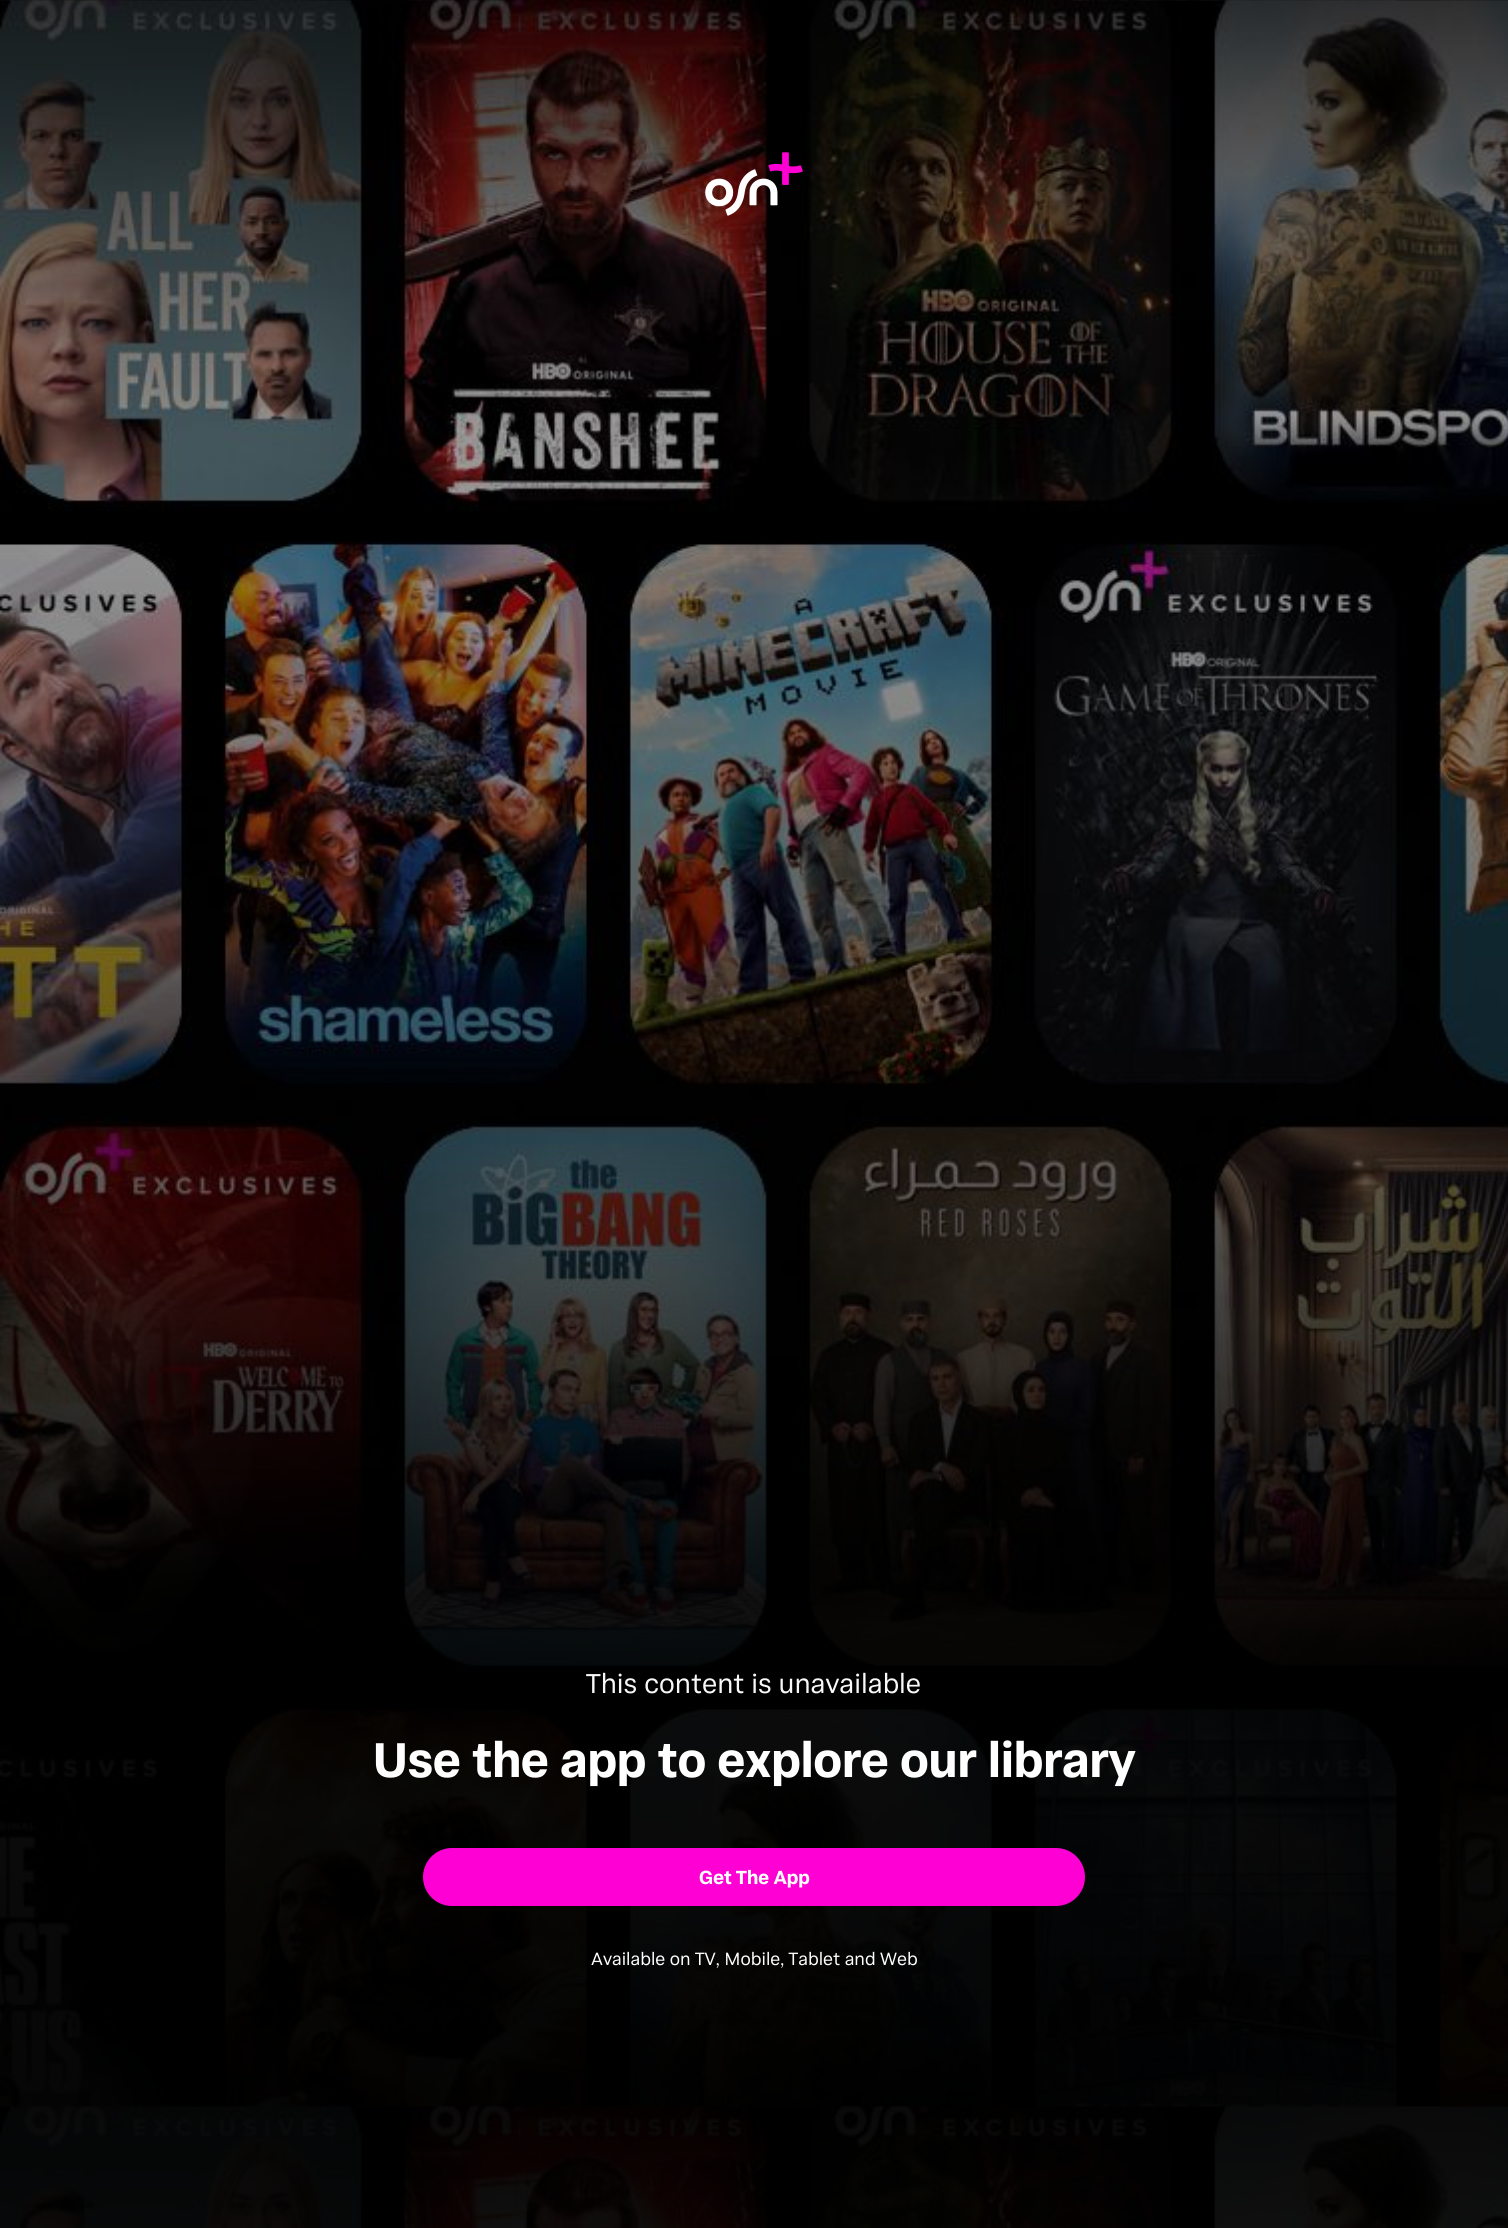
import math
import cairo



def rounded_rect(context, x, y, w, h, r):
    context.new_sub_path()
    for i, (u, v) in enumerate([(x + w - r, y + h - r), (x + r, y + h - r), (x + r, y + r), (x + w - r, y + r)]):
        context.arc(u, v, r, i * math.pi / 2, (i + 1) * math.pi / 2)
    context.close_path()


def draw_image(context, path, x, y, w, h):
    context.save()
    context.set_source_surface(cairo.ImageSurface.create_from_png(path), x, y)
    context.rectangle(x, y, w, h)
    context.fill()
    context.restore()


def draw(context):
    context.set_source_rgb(1, 1, 1)
    context.paint()
    draw_image(context, "images/1.png", 0, 0, 1508, 2228)
    draw_image(context, "images/2.png", 705, 152, 98, 64)
    context.set_source_rgb(1, 0, 212 / 255)
    rounded_rect(context, 423, 1848, 662, 58, 29)
    context.fill()
    context.select_font_face("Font")
    context.set_font_size(28.5)
    context.set_source_rgb(248 / 255, 248 / 255, 248 / 255)
    context.move_to(586, 1693)
    context.show_text("This content is unavailable")
    context.select_font_face("Font", cairo.FontSlant.NORMAL, cairo.FontWeight.BOLD)
    context.set_font_size(51.4)
    context.set_source_rgb(1, 1, 1)
    context.move_to(373, 1777)
    context.show_text("Use the app to explore our library")
    context.set_font_size(20)
    context.move_to(699, 1884)
    context.show_text("Get The App")
    context.select_font_face("Font")
    context.set_font_size(18.6)
    context.move_to(591, 1965)
    context.show_text("Available on TV, Mobile, Tablet and Web")


surface = cairo.ImageSurface(cairo.Format.RGB24, 1508, 2228)
context = cairo.Context(surface)
options = cairo.FontOptions()
options.set_hint_metrics(cairo.HintMetrics.OFF)
options.set_hint_style(cairo.HintStyle.NONE)
context.set_font_options(options)
context.set_miter_limit(4)
draw(context)
surface.write_to_png("out.png")
